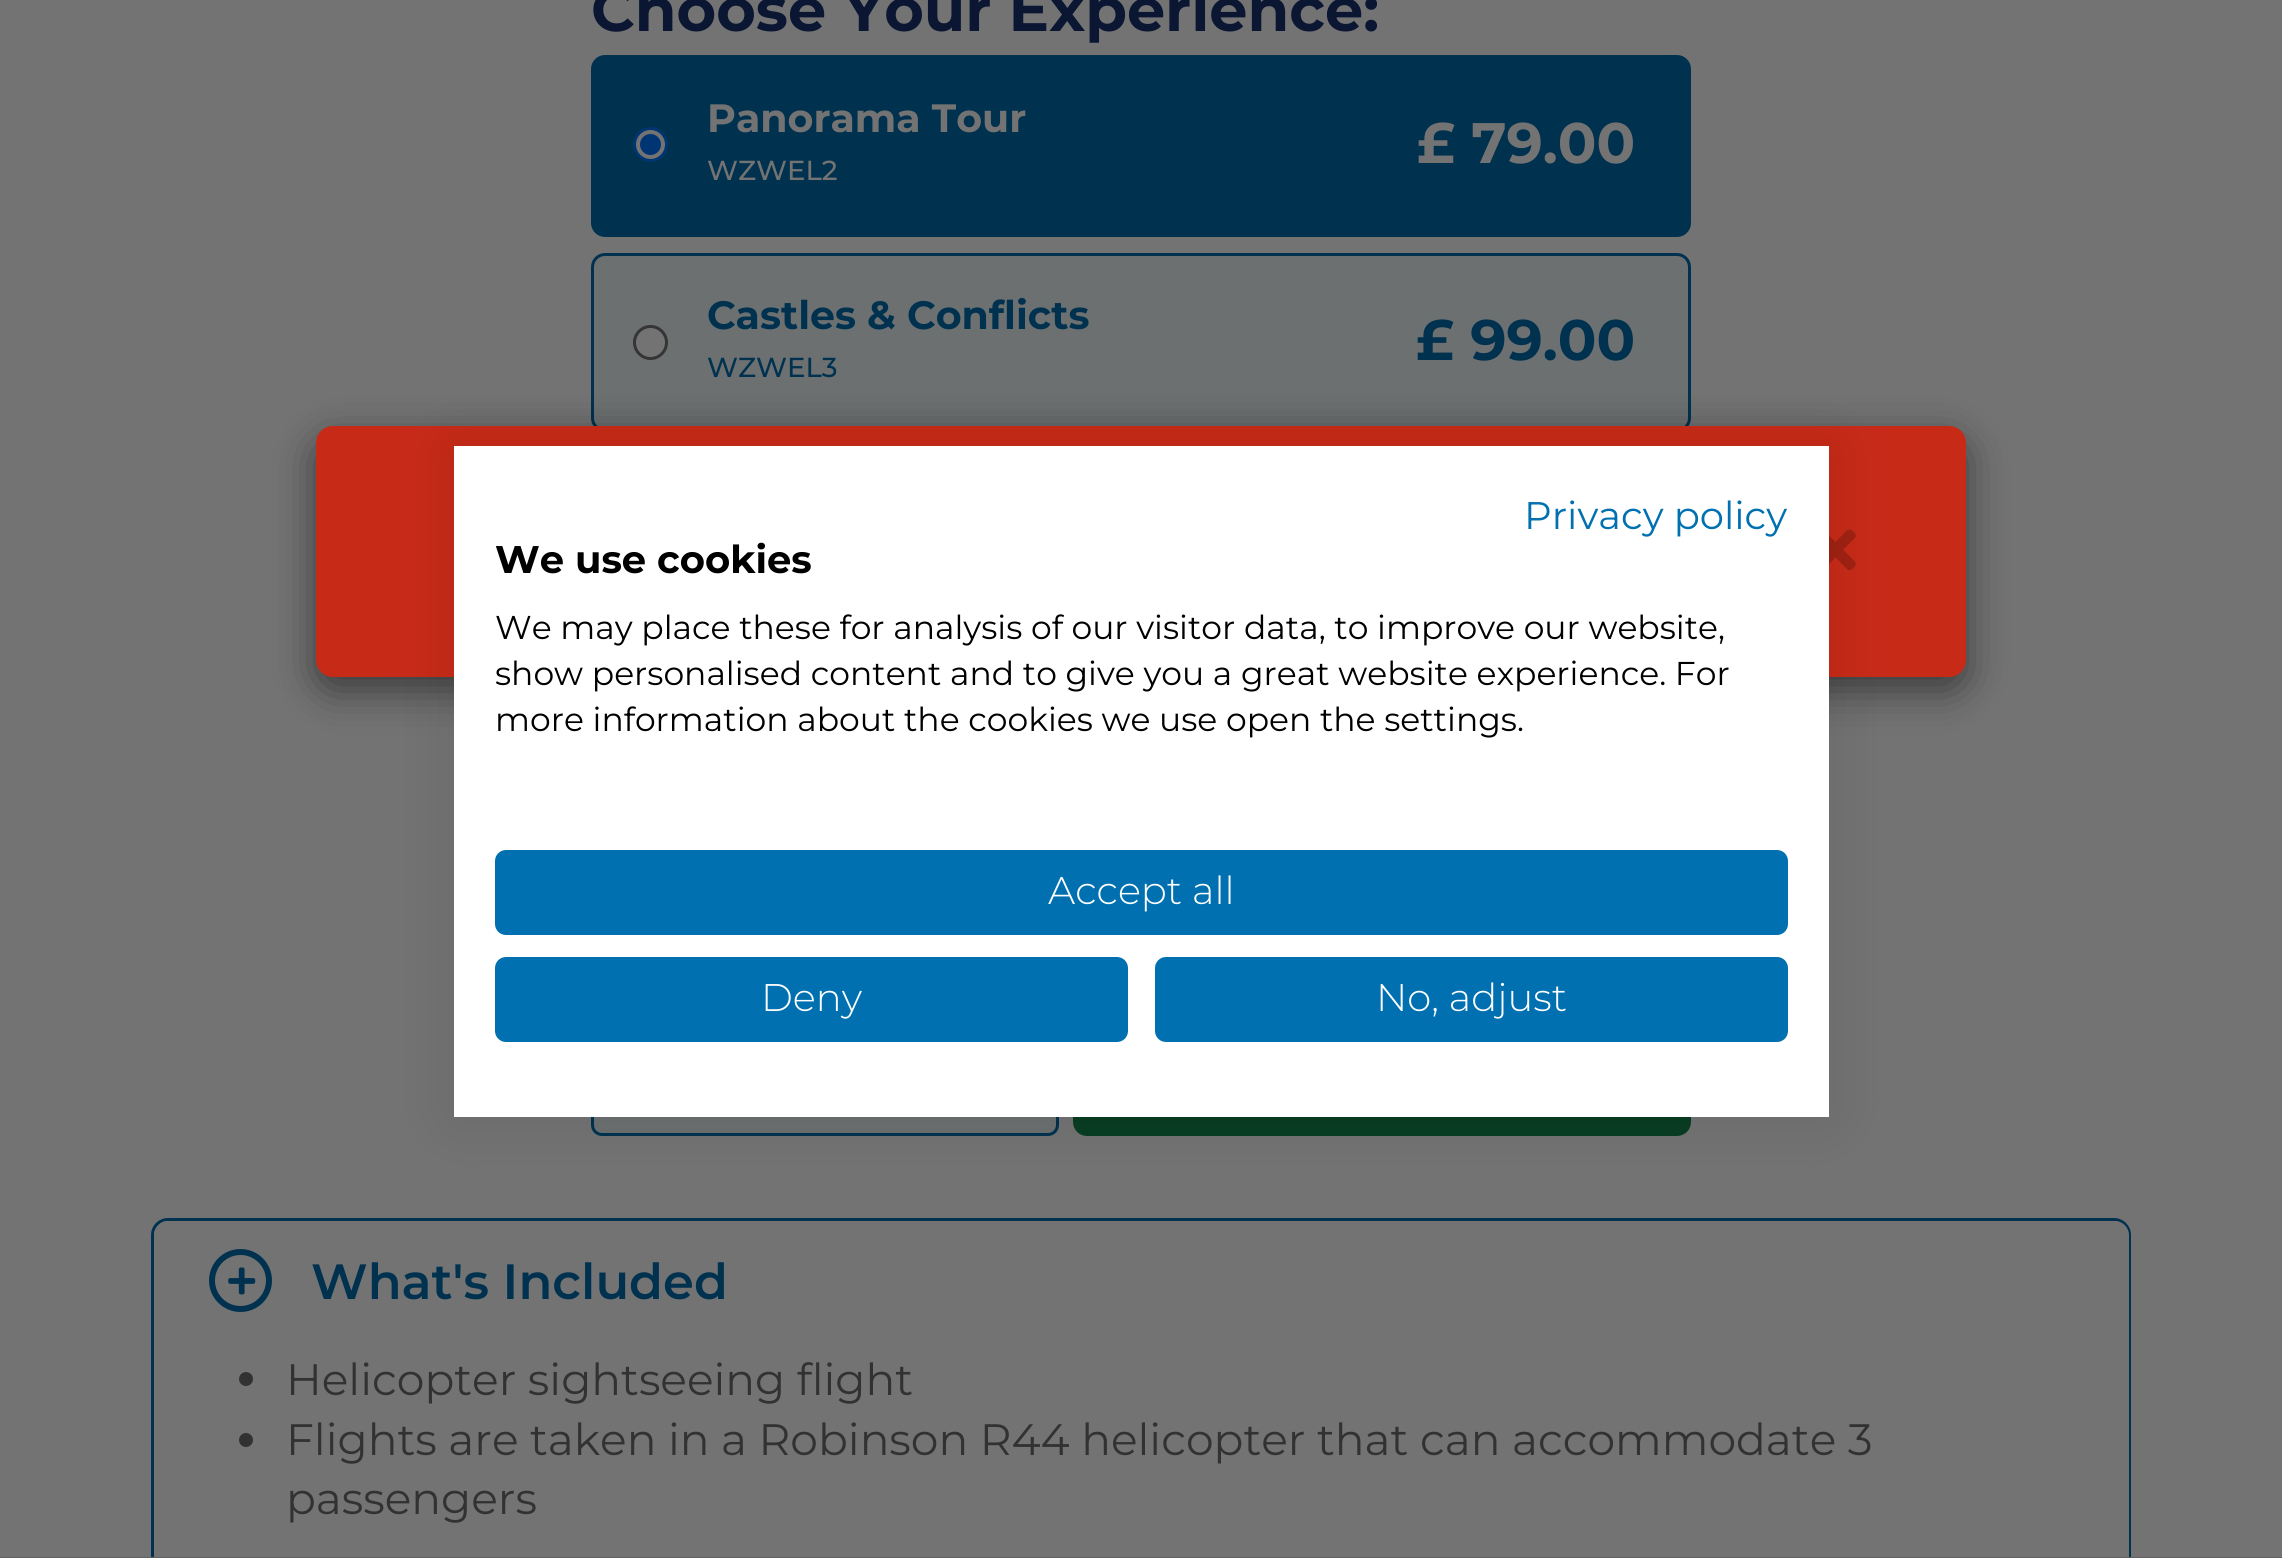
import math
import cairo



def rounded_rect(context, x, y, w, h, r):
    context.new_sub_path()
    for i, (u, v) in enumerate([(x + w - r, y + h - r), (x + r, y + h - r), (x + r, y + r), (x + w - r, y + r)]):
        context.arc(u, v, r, i * math.pi / 2, (i + 1) * math.pi / 2)
    context.close_path()


def draw_shadow(context, x, y, w, h, r, blur, alpha):
    context.push_group_with_content(cairo.Content.ALPHA)
    context.set_operator(cairo.Operator.SOURCE)
    for i in range(15, -16, -2):
        e = blur * i / 6
        if min(w, h) + 2 * e > 0:
            context.set_source_rgba(0, 0, 0, alpha * math.erfc((i - 1) / 8.5) / 2)
            rounded_rect(context, x - e, y - e, w + 2 * e, h + 2 * e, max(0, min(r + e + blur * .6, min(w, h) / 2 + e)))
            context.fill()
    context.mask(context.pop_group())


def draw_image(context, path, x, y, w, h):
    context.save()
    context.set_source_surface(cairo.ImageSurface.create_from_png(path), x, y)
    context.rectangle(x, y, w, h)
    context.fill()
    context.restore()


def draw(context):
    context.set_source_rgb(115 / 255, 115 / 255, 115 / 255)
    context.paint()
    context.set_source_rgb(0, 50 / 255, 79 / 255)
    rounded_rect(context, 592.5, 56.5, 1097, 179, 12.5)
    context.fill_preserve()
    context.set_line_width(3)
    context.stroke()
    context.set_source_rgb(115 / 255, 115 / 255, 115 / 255)
    context.arc(650.5, 144.5, 16, 0, 2 * math.pi)
    context.fill_preserve()
    context.set_source_rgb(0, 53 / 255, 115 / 255)
    context.stroke()
    context.arc(650.5, 144.5, 10.5, 0, 2 * math.pi)
    context.fill()
    context.set_source_rgb(108 / 255, 112 / 255, 113 / 255)
    rounded_rect(context, 592.5, 254.5, 1097, 176, 12.5)
    context.fill_preserve()
    context.set_source_rgb(0, 50 / 255, 79 / 255)
    context.stroke()
    context.set_source_rgb(115 / 255, 115 / 255, 115 / 255)
    context.arc(650.5, 342.5, 16, 0, 2 * math.pi)
    context.fill_preserve()
    context.set_source_rgb(53 / 255, 53 / 255, 53 / 255)
    context.stroke()
    context.set_source_rgb(108 / 255, 112 / 255, 113 / 255)
    rounded_rect(context, 592.5, 944.5, 465, 190, 9.5)
    context.fill_preserve()
    context.set_source_rgb(0, 50 / 255, 79 / 255)
    context.stroke()
    context.set_source_rgb(8 / 255, 61 / 255, 34 / 255)
    rounded_rect(context, 1073, 943, 618, 193, 14)
    context.fill()
    rounded_rect(context, 152.5, 1219.5, 1977, 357, 15.5)
    context.set_source_rgb(0, 50 / 255, 79 / 255)
    context.stroke()
    context.set_source_rgb(115 / 255, 115 / 255, 115 / 255)
    context.new_path()
    context.move_to(168, 1221)
    context.line_to(2115, 1221)
    context.curve_to(2122.5, 1221, 2129, 1227.5, 2129, 1235)
    context.line_to(2129, 1350)
    context.line_to(154, 1350)
    context.line_to(154, 1235)
    context.curve_to(154, 1227.5, 160.5, 1221, 168, 1221)
    context.close_path()
    context.fill()
    context.arc(240.5, 1280.5, 28.5, 0, 2 * math.pi)
    context.set_source_rgb(0, 50 / 255, 79 / 255)
    context.set_line_width(6)
    context.stroke()
    draw_image(context, "images/1.png", 228, 1267, 28, 28)
    context.set_source_rgb(115 / 255, 115 / 255, 115 / 255)
    context.rectangle(2128, 1350, 1, 207)
    context.fill()
    context.set_source_rgb(50 / 255, 50 / 255, 50 / 255)
    context.arc(246, 1379, 7, 0, 2 * math.pi)
    context.fill()
    context.arc(246, 1440, 7, 0, 2 * math.pi)
    context.fill()
    context.set_source_rgb(98 / 255, 98 / 255, 98 / 255)
    context.rectangle(0, 1557, 2282, 1)
    context.fill()
    context.set_source_rgb(0, 0, 0)
    draw_shadow(context, 316, 440, 1650, 250, 17, 20.5, 0.5)
    context.set_source_rgb(200 / 255, 42 / 255, 24 / 255)
    rounded_rect(context, 316, 426, 1650, 251, 17)
    context.fill()
    draw_image(context, "images/2.png", 1829, 529, 27, 41)
    context.set_source_rgb(0, 0, 0)
    draw_shadow(context, 454, 446, 1375, 671, 0, 33, 0.1)
    context.set_source_rgb(1, 1, 1)
    context.rectangle(454, 446, 1375, 671)
    context.fill()
    context.set_source_rgb(0, 112 / 255, 176 / 255)
    rounded_rect(context, 496.5, 851.5, 1290, 82, 9.5)
    context.fill_preserve()
    context.set_line_width(3)
    context.stroke()
    rounded_rect(context, 496.5, 958.5, 630, 82, 9.5)
    context.fill_preserve()
    context.stroke()
    rounded_rect(context, 1156.5, 958.5, 630, 82, 9.5)
    context.fill_preserve()
    context.stroke()
    context.select_font_face("Montserrat", cairo.FontSlant.NORMAL, cairo.FontWeight.BOLD)
    context.set_font_size(60.5)
    context.set_source_rgb(10 / 255, 22 / 255, 50 / 255)
    context.move_to(591, 31)
    context.show_text("Choose Your Experience:")
    context.set_font_size(39.5)
    context.set_source_rgb(115 / 255, 115 / 255, 115 / 255)
    context.move_to(707, 132)
    context.show_text("Panorama Tour")
    context.select_font_face("Montserrat Medium")
    context.set_font_size(27.5)
    context.move_to(707, 180)
    context.show_text("WZWEL2")
    context.select_font_face("Montserrat", cairo.FontSlant.NORMAL, cairo.FontWeight.BOLD)
    context.set_font_size(57)
    context.move_to(1417, 163)
    context.show_text("£ 79.00")
    context.set_font_size(39.5)
    context.set_source_rgb(0, 50 / 255, 79 / 255)
    context.move_to(707, 329)
    context.show_text("Castles & Conflicts")
    context.select_font_face("Montserrat Medium")
    context.set_font_size(27.5)
    context.move_to(707, 377)
    context.show_text("WZWEL3")
    context.select_font_face("Montserrat", cairo.FontSlant.NORMAL, cairo.FontWeight.BOLD)
    context.set_font_size(57)
    context.move_to(1416, 360)
    context.show_text("£ 99.00")
    context.select_font_face("Montserrat SemiBold")
    context.set_font_size(49.5)
    context.move_to(311, 1299)
    context.show_text("What's Included")
    context.select_font_face("Montserrat")
    context.set_font_size(44)
    context.set_source_rgb(50 / 255, 50 / 255, 50 / 255)
    context.move_to(286, 1395)
    context.show_text("Helicopter sightseeing flight")
    context.move_to(286, 1455)
    context.show_text("Flights are taken in a Robinson R44 helicopter that can accommodate 3")
    context.move_to(286, 1514)
    context.show_text("passengers")
    context.set_font_size(38.5)
    context.set_source_rgb(0, 112 / 255, 176 / 255)
    context.move_to(1524, 529)
    context.show_text("Privacy policy")
    context.select_font_face("Montserrat", cairo.FontSlant.NORMAL, cairo.FontWeight.BOLD)
    context.set_source_rgb(0, 0, 0)
    context.move_to(495, 573)
    context.show_text("We use cookies")
    context.select_font_face("Montserrat")
    context.set_font_size(33)
    context.move_to(495, 639)
    context.show_text("We may place these for analysis of our visitor data, to improve our website,")
    context.move_to(495, 685)
    context.show_text("show personalised content and to give you a great website experience. For")
    context.move_to(495, 731)
    context.show_text("more information about the cookies we use open the settings.")
    context.select_font_face("Montserrat Light")
    context.set_font_size(38.5)
    context.set_source_rgb(1, 1, 1)
    context.move_to(1048, 904)
    context.show_text("Accept all")
    context.move_to(761, 1011)
    context.show_text("Deny")
    context.move_to(1376, 1011)
    context.show_text("No, adjust")


surface = cairo.ImageSurface(cairo.Format.RGB24, 2282, 1558)
context = cairo.Context(surface)
options = cairo.FontOptions()
options.set_hint_metrics(cairo.HintMetrics.OFF)
options.set_hint_style(cairo.HintStyle.NONE)
context.set_font_options(options)
context.set_miter_limit(4)
draw(context)
surface.write_to_png("out.png")
